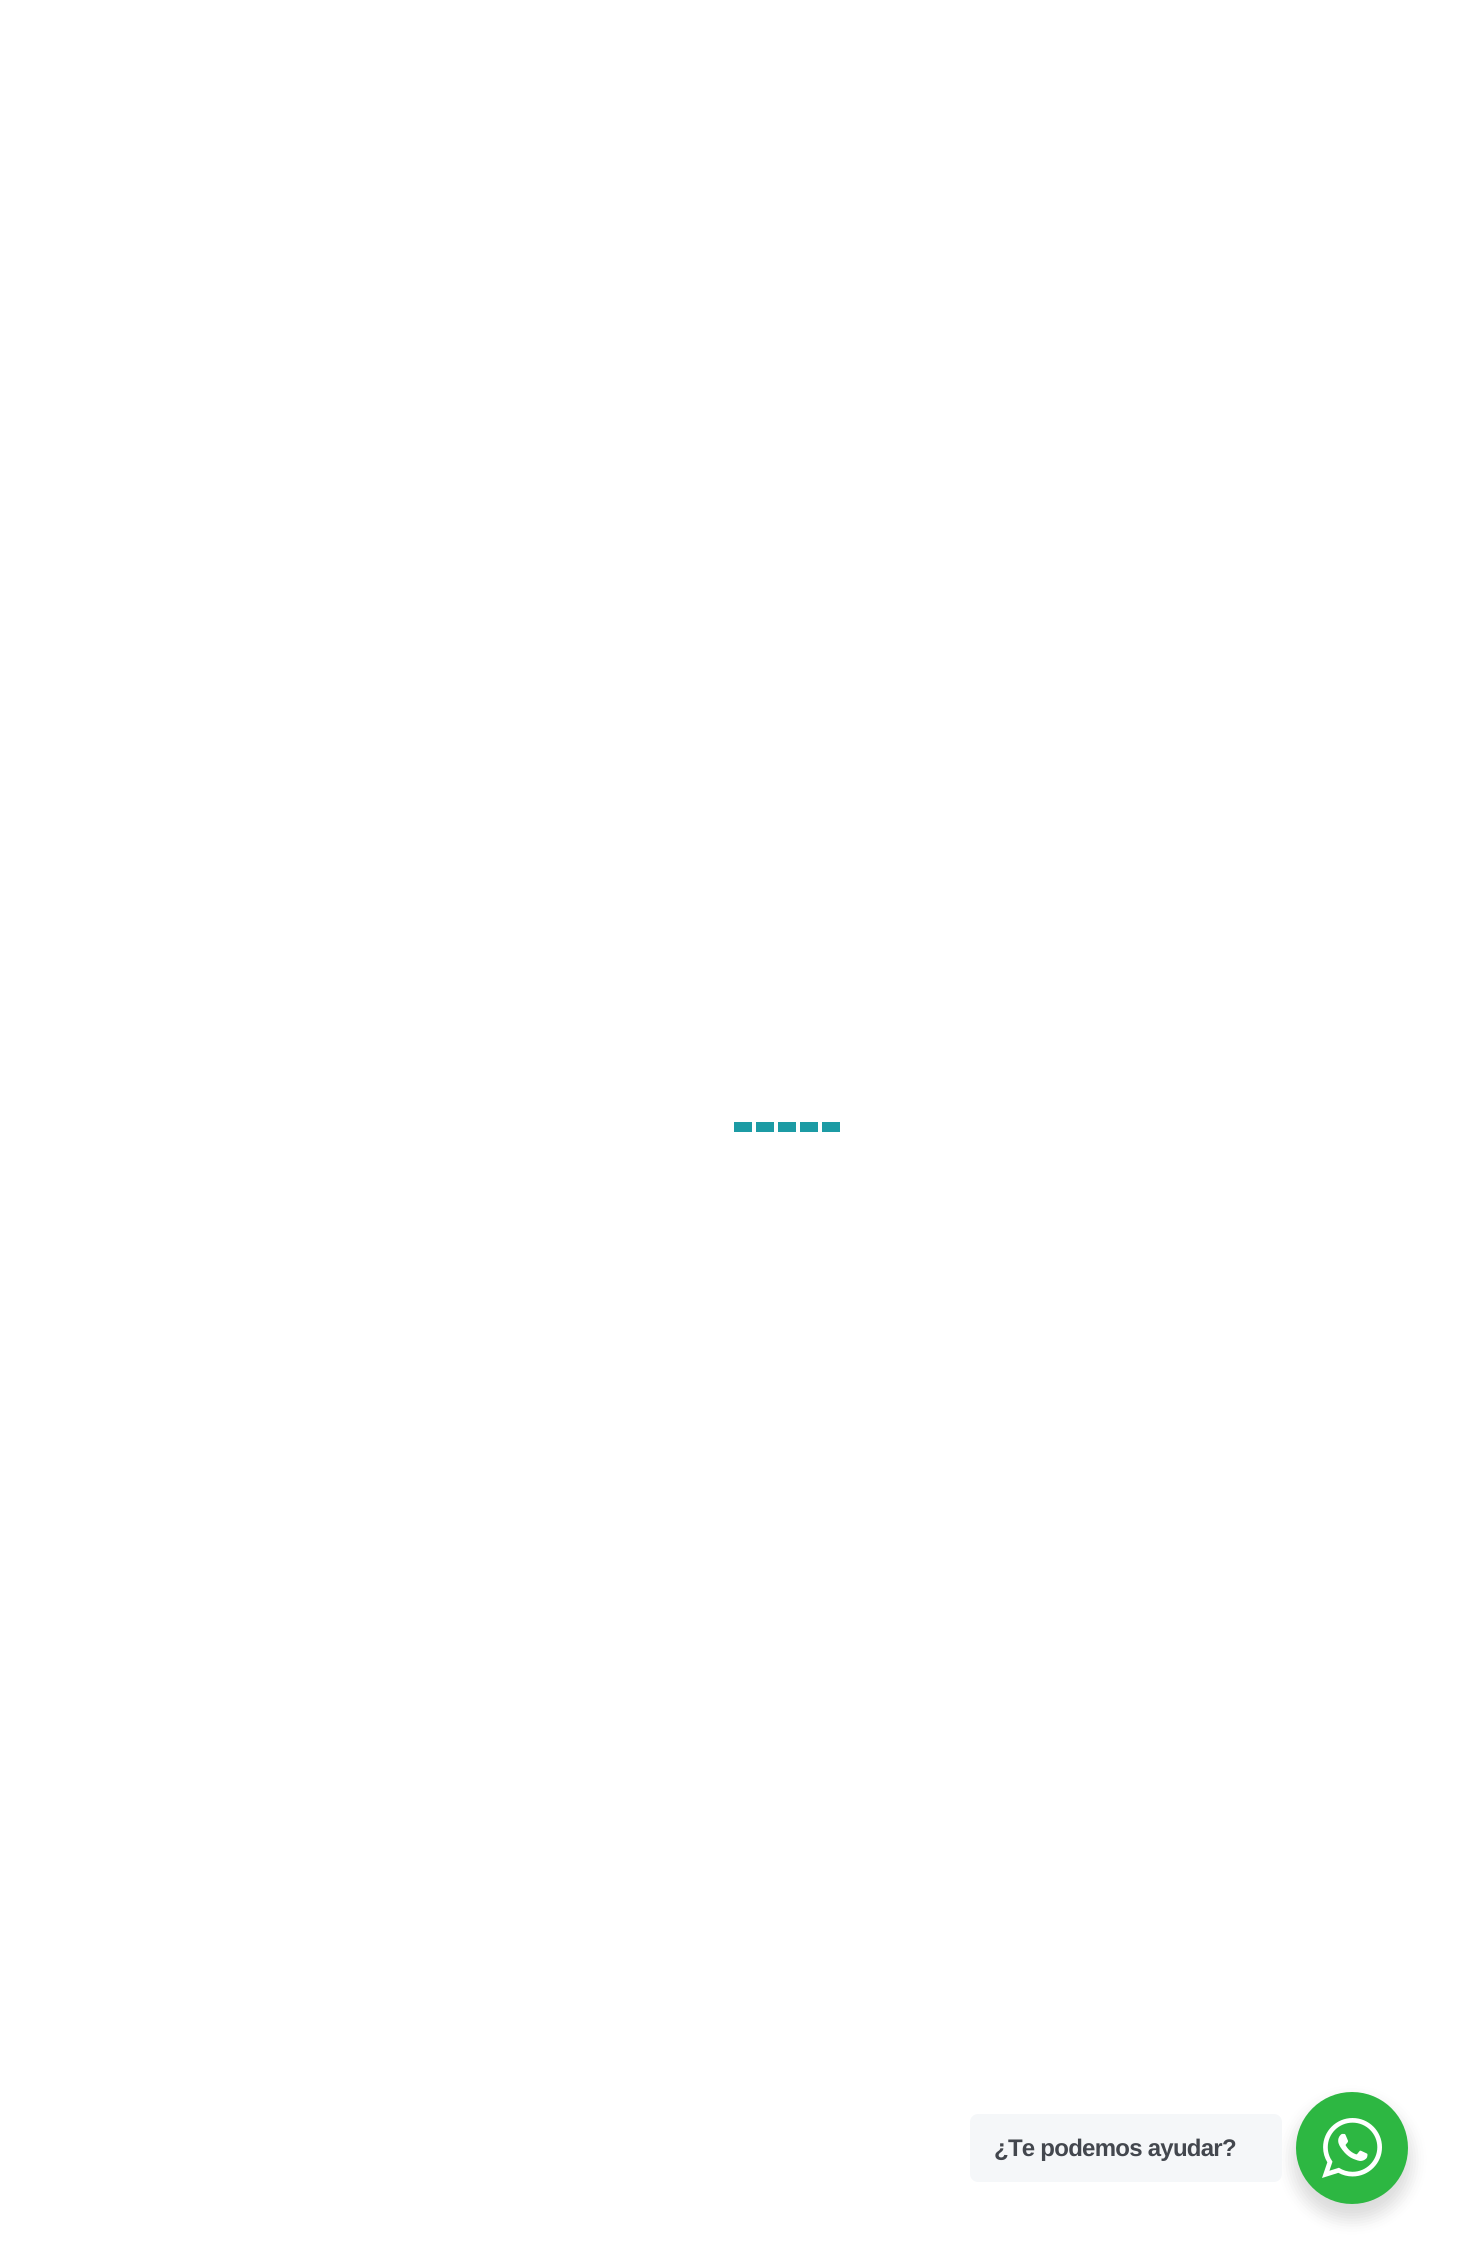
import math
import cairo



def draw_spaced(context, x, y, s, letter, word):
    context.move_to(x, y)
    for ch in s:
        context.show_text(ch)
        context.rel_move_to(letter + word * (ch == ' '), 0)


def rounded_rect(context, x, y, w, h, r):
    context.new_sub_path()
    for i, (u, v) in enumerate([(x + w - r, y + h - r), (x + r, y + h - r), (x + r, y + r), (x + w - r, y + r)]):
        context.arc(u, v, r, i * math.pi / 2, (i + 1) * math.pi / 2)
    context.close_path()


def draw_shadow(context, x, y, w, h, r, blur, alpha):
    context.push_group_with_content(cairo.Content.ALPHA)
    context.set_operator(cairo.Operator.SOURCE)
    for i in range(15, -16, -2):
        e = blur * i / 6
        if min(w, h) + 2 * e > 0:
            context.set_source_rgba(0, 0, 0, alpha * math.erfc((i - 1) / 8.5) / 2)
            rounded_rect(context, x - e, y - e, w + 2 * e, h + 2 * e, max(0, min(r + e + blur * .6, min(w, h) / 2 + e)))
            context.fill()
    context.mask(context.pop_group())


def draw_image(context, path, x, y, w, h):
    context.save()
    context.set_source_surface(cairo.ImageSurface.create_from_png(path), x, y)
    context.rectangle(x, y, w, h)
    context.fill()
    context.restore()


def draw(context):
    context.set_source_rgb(1, 1, 1)
    context.paint()
    context.set_source_rgb(28 / 255, 155 / 255, 164 / 255)
    context.rectangle(734, 1122, 18, 10)
    context.fill()
    context.rectangle(756, 1122, 18, 10)
    context.fill()
    context.rectangle(778, 1122, 18, 10)
    context.fill()
    context.rectangle(800, 1122, 18, 10)
    context.fill()
    context.rectangle(822, 1122, 18, 10)
    context.fill()
    context.set_source_rgb(0, 0, 0)
    draw_shadow(context, 1292, 2100, 120, 120, 60, 8, 0.14)
    context.set_source_rgb(245 / 255, 247 / 255, 249 / 255)
    rounded_rect(context, 970, 2114, 312, 68, 8)
    context.fill()
    context.set_source_rgb(45 / 255, 183 / 255, 66 / 255)
    context.arc(1352, 2148, 56, 0, 2 * math.pi)
    context.fill()
    draw_image(context, "images/1.png", 1322, 2118, 60, 60)
    context.select_font_face("Liberation Sans", cairo.FontSlant.NORMAL, cairo.FontWeight.BOLD)
    context.set_font_size(24)
    context.set_source_rgb(67 / 255, 71 / 255, 78 / 255)
    draw_spaced(context, 994, 2156, "¿Te podemos ayudar?", -0.75, 0)


surface = cairo.ImageSurface(cairo.Format.RGB24, 1467, 2264)
context = cairo.Context(surface)
options = cairo.FontOptions()
options.set_hint_metrics(cairo.HintMetrics.OFF)
options.set_hint_style(cairo.HintStyle.NONE)
context.set_font_options(options)
context.set_miter_limit(4)
draw(context)
surface.write_to_png("out.png")
